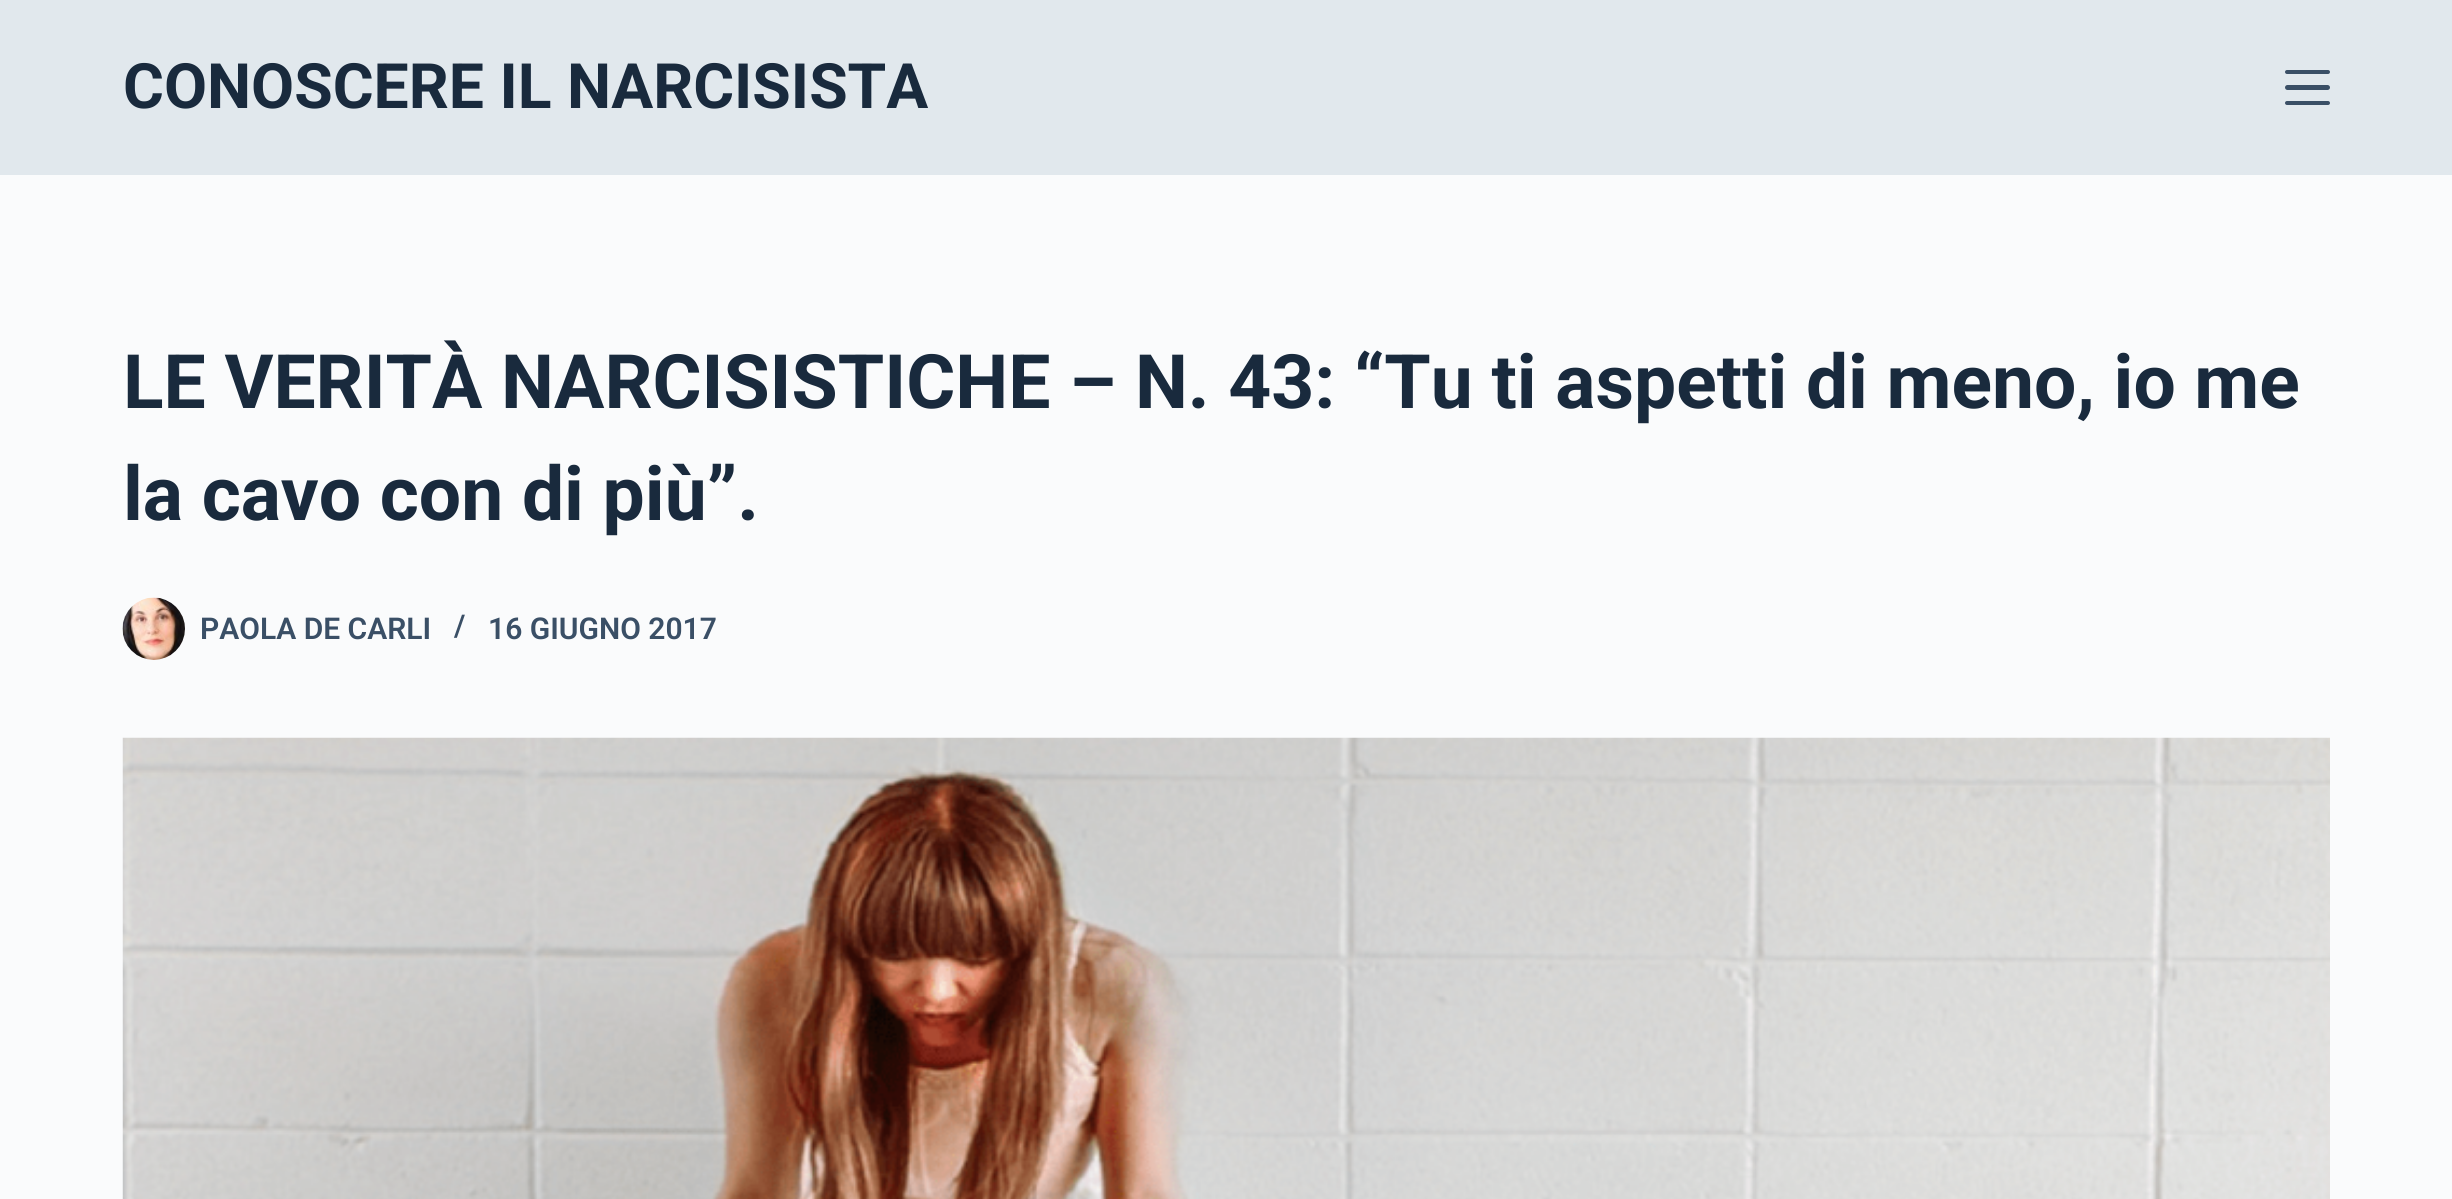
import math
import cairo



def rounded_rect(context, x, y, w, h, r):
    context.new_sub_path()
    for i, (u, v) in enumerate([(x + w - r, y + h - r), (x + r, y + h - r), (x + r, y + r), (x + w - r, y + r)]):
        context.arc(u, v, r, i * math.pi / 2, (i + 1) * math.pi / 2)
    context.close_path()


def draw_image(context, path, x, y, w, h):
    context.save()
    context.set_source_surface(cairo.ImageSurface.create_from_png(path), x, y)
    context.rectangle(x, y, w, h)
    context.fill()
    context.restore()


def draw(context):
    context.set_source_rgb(250 / 255, 251 / 255, 252 / 255)
    context.paint()
    context.set_source_rgb(225 / 255, 232 / 255, 237 / 255)
    context.rectangle(0, 0, 2452, 175)
    context.fill()
    context.set_source_rgb(58 / 255, 79 / 255, 102 / 255)
    rounded_rect(context, 2285, 70, 45, 4, 2)
    context.fill()
    rounded_rect(context, 2285, 85, 45, 5, 2.5)
    context.fill()
    rounded_rect(context, 2285, 101, 45, 4, 2)
    context.fill()
    draw_image(context, "images/1.png", 122, 597, 63, 63)
    draw_image(context, "images/2.png", 122, 737, 2208, 462)
    context.select_font_face("Roboto", cairo.FontSlant.NORMAL, cairo.FontWeight.BOLD)
    context.set_font_size(62.5)
    context.set_source_rgb(25 / 255, 42 / 255, 61 / 255)
    context.move_to(123, 108)
    context.show_text("CONOSCERE IL NARCISISTA")
    context.set_font_size(75)
    context.move_to(123, 408)
    context.show_text("LE VERITÀ NARCISISTICHE – N. 43: “Tu ti aspetti di meno, io me")
    context.move_to(123, 520)
    context.show_text("la cavo con di più”.")
    context.select_font_face("Roboto SemiBold")
    context.set_font_size(30)
    context.set_source_rgb(58 / 255, 79 / 255, 102 / 255)
    context.move_to(200, 639)
    context.show_text("PAOLA DE CARLI")
    context.move_to(454, 636)
    context.show_text("/")
    context.move_to(488, 639)
    context.show_text("16 GIUGNO 2017")


surface = cairo.ImageSurface(cairo.Format.RGB24, 2452, 1199)
context = cairo.Context(surface)
options = cairo.FontOptions()
options.set_hint_metrics(cairo.HintMetrics.OFF)
options.set_hint_style(cairo.HintStyle.NONE)
context.set_font_options(options)
context.set_miter_limit(4)
draw(context)
surface.write_to_png("out.png")
